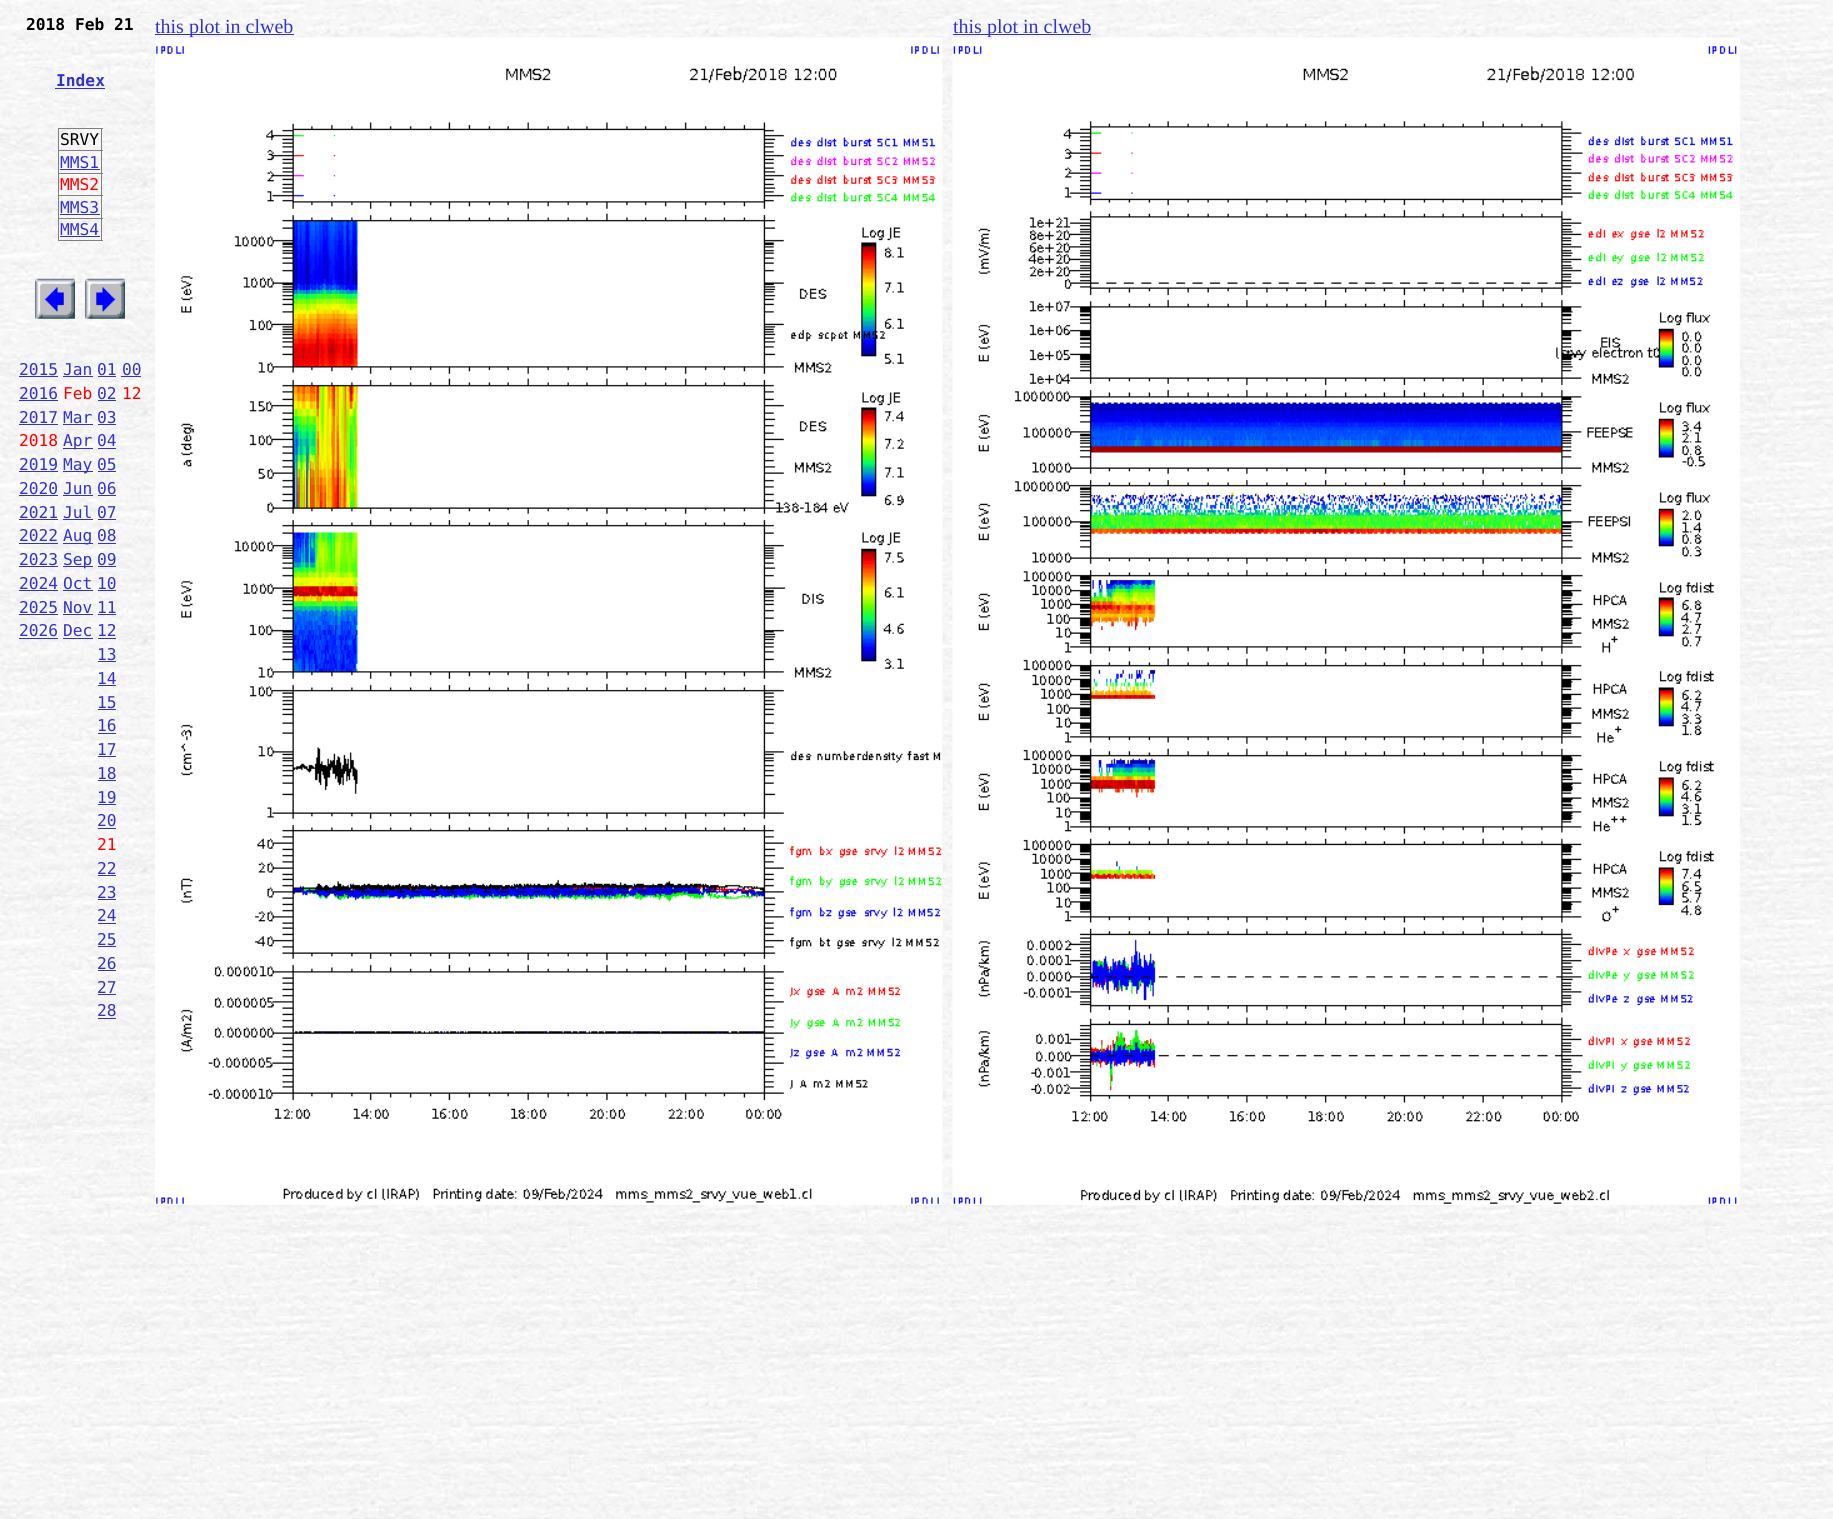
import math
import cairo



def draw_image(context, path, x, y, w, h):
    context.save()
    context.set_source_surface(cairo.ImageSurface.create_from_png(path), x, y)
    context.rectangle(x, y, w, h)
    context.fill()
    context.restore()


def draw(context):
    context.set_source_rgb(1, 1, 1)
    context.paint()
    draw_image(context, "images/1.png", 0, 0, 1833, 1519)
    context.set_source_rgb(51 / 255, 51 / 255, 204 / 255)
    context.rectangle(55, 88, 50, 1)
    context.fill()
    context.set_source_rgb(128 / 255, 128 / 255, 128 / 255)
    context.rectangle(58, 128, 45, 1)
    context.fill()
    context.rectangle(101, 128, 1, 113)
    context.fill()
    context.rectangle(58, 240, 45, 1)
    context.fill()
    context.rectangle(58, 128, 1, 113)
    context.fill()
    context.rectangle(58, 150, 45, 1)
    context.fill()
    context.set_source_rgb(51 / 255, 51 / 255, 204 / 255)
    context.rectangle(60, 169, 40, 1)
    context.fill()
    context.set_source_rgb(128 / 255, 128 / 255, 128 / 255)
    context.rectangle(58, 173, 45, 1)
    context.fill()
    context.rectangle(58, 195, 45, 1)
    context.fill()
    context.set_source_rgb(51 / 255, 51 / 255, 204 / 255)
    context.rectangle(60, 214, 40, 1)
    context.fill()
    context.set_source_rgb(128 / 255, 128 / 255, 128 / 255)
    context.rectangle(58, 218, 45, 1)
    context.fill()
    context.set_source_rgb(51 / 255, 51 / 255, 204 / 255)
    context.rectangle(60, 236, 40, 1)
    context.fill()
    draw_image(context, "images/2.png", 35, 278, 40, 41)
    draw_image(context, "images/3.png", 85, 278, 40, 41)
    context.rectangle(19, 376, 39, 1)
    context.fill()
    context.rectangle(63, 376, 30, 1)
    context.fill()
    context.rectangle(98, 376, 18, 1)
    context.fill()
    context.rectangle(121, 376, 20, 1)
    context.fill()
    context.rectangle(19, 400, 39, 1)
    context.fill()
    context.rectangle(98, 400, 18, 1)
    context.fill()
    context.rectangle(19, 424, 39, 1)
    context.fill()
    context.rectangle(63, 424, 30, 1)
    context.fill()
    context.rectangle(98, 424, 18, 1)
    context.fill()
    context.rectangle(63, 448, 30, 1)
    context.fill()
    context.rectangle(98, 448, 18, 1)
    context.fill()
    context.rectangle(19, 471, 39, 1)
    context.fill()
    context.rectangle(63, 471, 30, 1)
    context.fill()
    context.rectangle(98, 471, 18, 1)
    context.fill()
    context.rectangle(19, 495, 39, 1)
    context.fill()
    context.rectangle(63, 495, 30, 1)
    context.fill()
    context.rectangle(98, 495, 18, 1)
    context.fill()
    context.rectangle(19, 519, 39, 1)
    context.fill()
    context.rectangle(63, 519, 30, 1)
    context.fill()
    context.rectangle(98, 519, 18, 1)
    context.fill()
    context.rectangle(19, 543, 39, 1)
    context.fill()
    context.rectangle(63, 543, 30, 1)
    context.fill()
    context.rectangle(98, 543, 18, 1)
    context.fill()
    context.rectangle(19, 566, 39, 1)
    context.fill()
    context.rectangle(63, 566, 30, 1)
    context.fill()
    context.rectangle(98, 566, 18, 1)
    context.fill()
    context.rectangle(19, 590, 39, 1)
    context.fill()
    context.rectangle(63, 590, 30, 1)
    context.fill()
    context.rectangle(98, 590, 18, 1)
    context.fill()
    context.rectangle(19, 614, 39, 1)
    context.fill()
    context.rectangle(63, 614, 30, 1)
    context.fill()
    context.rectangle(98, 614, 18, 1)
    context.fill()
    context.rectangle(19, 638, 39, 1)
    context.fill()
    context.rectangle(63, 638, 30, 1)
    context.fill()
    context.rectangle(98, 638, 18, 1)
    context.fill()
    context.rectangle(98, 661, 18, 1)
    context.fill()
    context.rectangle(98, 685, 18, 1)
    context.fill()
    context.rectangle(98, 709, 18, 1)
    context.fill()
    context.rectangle(98, 733, 18, 1)
    context.fill()
    context.rectangle(98, 756, 18, 1)
    context.fill()
    context.rectangle(98, 780, 18, 1)
    context.fill()
    context.rectangle(98, 804, 18, 1)
    context.fill()
    context.rectangle(98, 828, 18, 1)
    context.fill()
    context.rectangle(98, 875, 18, 1)
    context.fill()
    context.rectangle(98, 899, 18, 1)
    context.fill()
    context.rectangle(98, 923, 18, 1)
    context.fill()
    context.rectangle(98, 946, 18, 1)
    context.fill()
    context.rectangle(98, 970, 18, 1)
    context.fill()
    context.rectangle(98, 994, 18, 1)
    context.fill()
    context.rectangle(98, 1018, 18, 1)
    context.fill()
    context.rectangle(155, 34, 139, 1)
    context.fill()
    context.rectangle(953, 34, 138, 1)
    context.fill()
    context.select_font_face("DejaVu Sans Mono", cairo.FontSlant.NORMAL, cairo.FontWeight.BOLD)
    context.set_font_size(16.25)
    context.set_source_rgb(0, 0, 0)
    context.move_to(26, 30)
    context.show_text("2018 Feb 21")
    context.set_source_rgb(51 / 255, 51 / 255, 204 / 255)
    context.move_to(56, 86)
    context.show_text("Index")
    context.select_font_face("DejaVu Sans Mono")
    context.set_source_rgb(0, 0, 0)
    context.move_to(60, 145)
    context.show_text("SRVY")
    context.set_source_rgb(51 / 255, 51 / 255, 204 / 255)
    context.move_to(60, 168)
    context.show_text("MMS1")
    context.set_source_rgb(1, 0, 0)
    context.move_to(60, 190)
    context.show_text("MMS2")
    context.set_source_rgb(51 / 255, 51 / 255, 204 / 255)
    context.move_to(60, 213)
    context.show_text("MMS3")
    context.move_to(60, 235)
    context.show_text("MMS4")
    context.move_to(19, 375)
    context.show_text("2015")
    context.move_to(63, 375)
    context.show_text("Jan")
    context.move_to(97, 375)
    context.show_text("01")
    context.move_to(122, 375)
    context.show_text("00")
    context.move_to(19, 399)
    context.show_text("2016")
    context.set_source_rgb(1, 0, 0)
    context.move_to(63, 399)
    context.show_text("Feb")
    context.set_source_rgb(51 / 255, 51 / 255, 204 / 255)
    context.move_to(97, 399)
    context.show_text("02")
    context.set_source_rgb(1, 0, 0)
    context.move_to(122, 399)
    context.show_text("12")
    context.set_source_rgb(51 / 255, 51 / 255, 204 / 255)
    context.move_to(19, 423)
    context.show_text("2017")
    context.move_to(63, 423)
    context.show_text("Mar")
    context.move_to(97, 423)
    context.show_text("03")
    context.set_source_rgb(1, 0, 0)
    context.move_to(19, 446)
    context.show_text("2018")
    context.set_source_rgb(51 / 255, 51 / 255, 204 / 255)
    context.move_to(63, 446)
    context.show_text("Apr")
    context.move_to(97, 446)
    context.show_text("04")
    context.move_to(19, 470)
    context.show_text("2019")
    context.move_to(63, 470)
    context.show_text("May")
    context.move_to(97, 470)
    context.show_text("05")
    context.move_to(19, 494)
    context.show_text("2020")
    context.move_to(63, 494)
    context.show_text("Jun")
    context.move_to(97, 494)
    context.show_text("06")
    context.move_to(19, 518)
    context.show_text("2021")
    context.move_to(63, 518)
    context.show_text("Jul")
    context.move_to(97, 518)
    context.show_text("07")
    context.move_to(19, 541)
    context.show_text("2022")
    context.move_to(63, 541)
    context.show_text("Aug")
    context.move_to(97, 541)
    context.show_text("08")
    context.move_to(19, 565)
    context.show_text("2023")
    context.move_to(63, 565)
    context.show_text("Sep")
    context.move_to(97, 565)
    context.show_text("09")
    context.move_to(19, 589)
    context.show_text("2024")
    context.move_to(63, 589)
    context.show_text("Oct")
    context.move_to(97, 589)
    context.show_text("10")
    context.move_to(19, 613)
    context.show_text("2025")
    context.move_to(63, 613)
    context.show_text("Nov")
    context.move_to(97, 613)
    context.show_text("11")
    context.move_to(19, 636)
    context.show_text("2026")
    context.move_to(63, 636)
    context.show_text("Dec")
    context.move_to(97, 636)
    context.show_text("12")
    context.move_to(97, 660)
    context.show_text("13")
    context.move_to(97, 684)
    context.show_text("14")
    context.move_to(97, 708)
    context.show_text("15")
    context.move_to(97, 731)
    context.show_text("16")
    context.move_to(97, 755)
    context.show_text("17")
    context.move_to(97, 779)
    context.show_text("18")
    context.move_to(97, 803)
    context.show_text("19")
    context.move_to(97, 826)
    context.show_text("20")
    context.set_source_rgb(1, 0, 0)
    context.move_to(97, 850)
    context.show_text("21")
    context.set_source_rgb(51 / 255, 51 / 255, 204 / 255)
    context.move_to(97, 874)
    context.show_text("22")
    context.move_to(97, 898)
    context.show_text("23")
    context.move_to(97, 921)
    context.show_text("24")
    context.move_to(97, 945)
    context.show_text("25")
    context.move_to(97, 969)
    context.show_text("26")
    context.move_to(97, 993)
    context.show_text("27")
    context.move_to(97, 1016)
    context.show_text("28")
    context.select_font_face("Liberation Serif")
    context.set_font_size(20)
    context.move_to(155, 33)
    context.show_text("this plot in clweb")
    draw_image(context, "images/4.png", 155, 37, 788, 1168)
    context.move_to(953, 33)
    context.show_text("this plot in clweb")
    draw_image(context, "images/5.png", 952, 37, 788, 1168)


surface = cairo.ImageSurface(cairo.Format.RGB24, 1833, 1519)
context = cairo.Context(surface)
options = cairo.FontOptions()
options.set_hint_metrics(cairo.HintMetrics.OFF)
options.set_hint_style(cairo.HintStyle.NONE)
context.set_font_options(options)
context.set_miter_limit(4)
draw(context)
surface.write_to_png("out.png")
